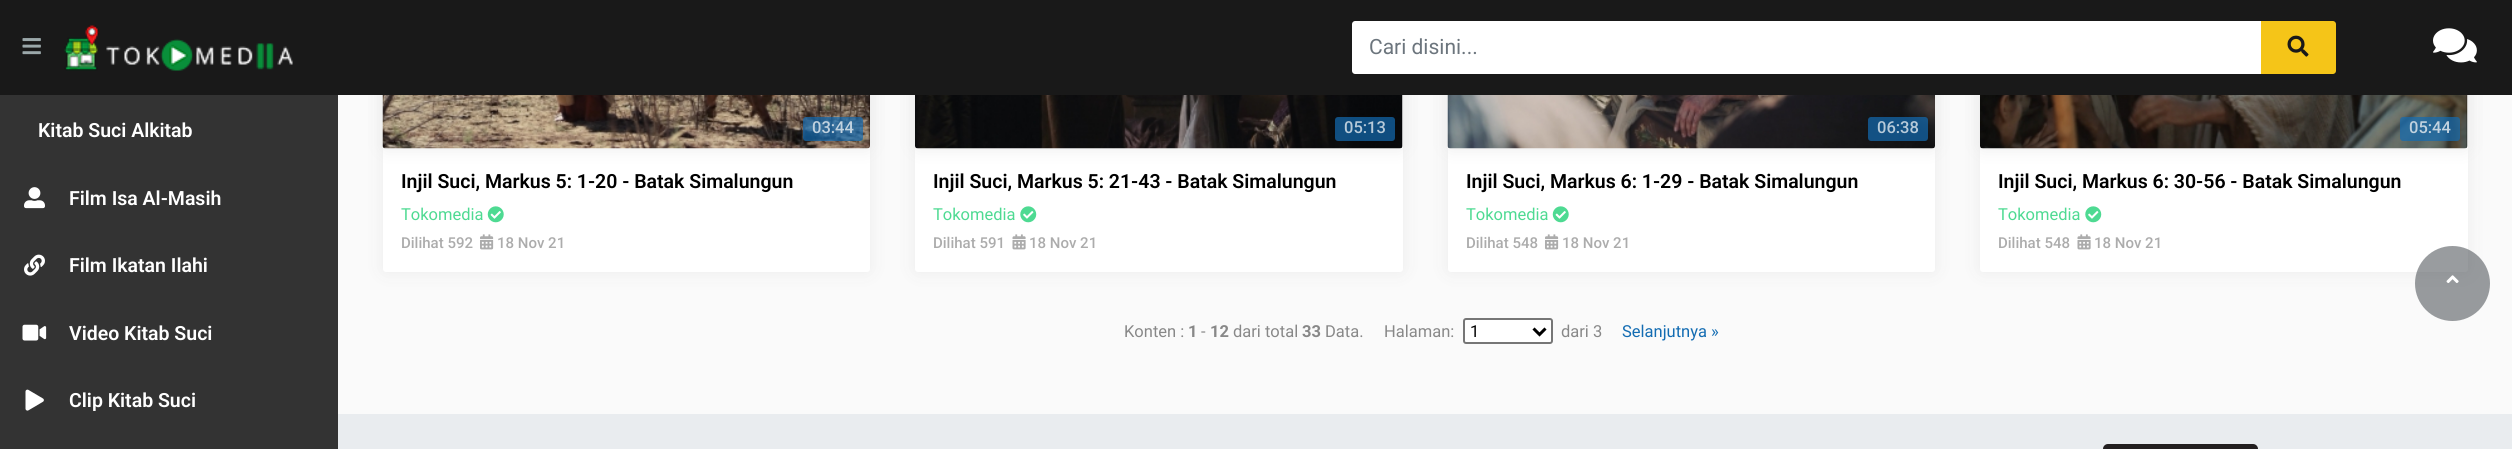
import math
import cairo



def rounded_rect(context, x, y, w, h, r):
    context.new_sub_path()
    for i, (u, v) in enumerate([(x + w - r, y + h - r), (x + r, y + h - r), (x + r, y + r), (x + w - r, y + r)]):
        context.arc(u, v, r, i * math.pi / 2, (i + 1) * math.pi / 2)
    context.close_path()


def draw_shadow(context, x, y, w, h, r, blur, alpha):
    context.push_group_with_content(cairo.Content.ALPHA)
    context.set_operator(cairo.Operator.SOURCE)
    for i in range(15, -16, -2):
        e = blur * i / 6
        if min(w, h) + 2 * e > 0:
            context.set_source_rgba(0, 0, 0, alpha * math.erfc((i - 1) / 8.5) / 2)
            rounded_rect(context, x - e, y - e, w + 2 * e, h + 2 * e, max(0, min(r + e + blur * .6, min(w, h) / 2 + e)))
            context.fill()
    context.mask(context.pop_group())


def draw_image(context, path, x, y, w, h):
    context.save()
    context.set_source_surface(cairo.ImageSurface.create_from_png(path), x, y)
    context.rectangle(x, y, w, h)
    context.fill()
    context.restore()


def draw(context):
    context.set_source_rgb(250 / 255, 250 / 255, 250 / 255)
    context.paint()
    context.set_source_rgb(236 / 255, 236 / 255, 236 / 255)
    draw_shadow(context, 383, -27, 487, 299, 3, 8, 1)
    context.set_source_rgb(1, 1, 1)
    rounded_rect(context, 383, -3, 487, 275, 3)
    context.fill()
    context.set_source_rgb(236 / 255, 236 / 255, 236 / 255)
    draw_shadow(context, 383, -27, 487, 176, 3, 8, 1)
    draw_shadow(context, 915, -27, 488, 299, 3, 8, 1)
    context.set_source_rgb(1, 1, 1)
    rounded_rect(context, 915, -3, 488, 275, 3)
    context.fill()
    context.set_source_rgb(236 / 255, 236 / 255, 236 / 255)
    draw_shadow(context, 915, -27, 488, 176, 3, 8, 1)
    draw_shadow(context, 1448, -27, 487, 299, 3, 8, 1)
    context.set_source_rgb(1, 1, 1)
    rounded_rect(context, 1448, -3, 487, 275, 3)
    context.fill()
    context.set_source_rgb(236 / 255, 236 / 255, 236 / 255)
    draw_shadow(context, 1448, -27, 487, 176, 3, 8, 1)
    draw_shadow(context, 1980, -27, 488, 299, 3, 8, 1)
    context.set_source_rgb(1, 1, 1)
    rounded_rect(context, 1980, -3, 488, 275, 3)
    context.fill()
    context.set_source_rgb(236 / 255, 236 / 255, 236 / 255)
    draw_shadow(context, 1980, -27, 488, 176, 3, 8, 1)
    context.set_source_rgb(25 / 255, 25 / 255, 25 / 255)
    context.rectangle(0, 0, 2512, 95)
    context.fill()
    draw_image(context, "images/1.png", 22, 38, 19, 17)
    draw_image(context, "images/2.png", 64, 25, 229, 46)
    context.set_source_rgb(1, 1, 1)
    context.new_path()
    context.move_to(1355, 21)
    context.line_to(2262, 21)
    context.line_to(2262, 74)
    context.line_to(1355, 74)
    context.curve_to(1353.5, 74, 1352, 72.5, 1352, 71)
    context.line_to(1352, 24)
    context.curve_to(1352, 22.5, 1353.5, 21, 1355, 21)
    context.close_path()
    context.fill()
    context.set_source_rgb(245 / 255, 197 / 255, 24 / 255)
    context.new_path()
    context.move_to(2261, 21)
    context.line_to(2333, 21)
    context.curve_to(2334.5, 21, 2336, 22.5, 2336, 24)
    context.line_to(2336, 71)
    context.curve_to(2336, 72.5, 2334.5, 74, 2333, 74)
    context.line_to(2261, 74)
    context.close_path()
    context.fill()
    draw_image(context, "images/3.png", 2287, 35, 22, 22)
    draw_image(context, "images/4.png", 2433, 28, 44, 35)
    context.set_source_rgb(51 / 255, 51 / 255, 51 / 255)
    context.rectangle(0, 95, 338, 354)
    context.fill()
    draw_image(context, "images/5.png", 24, 187, 21, 22)
    draw_image(context, "images/6.png", 24, 254, 21, 22)
    draw_image(context, "images/7.png", 22, 324, 25, 17)
    draw_image(context, "images/8.png", 25, 389, 19, 22)
    draw_image(context, "images/9.png", 382, 95, 488, 54)
    context.set_source_rgba(19 / 255, 108 / 255, 178 / 255, 0.7)
    rounded_rect(context, 803, 117, 60, 24, 3)
    context.fill()
    draw_image(context, "images/10.png", 487, 206, 17, 17)
    draw_image(context, "images/11.png", 480, 234, 14, 16)
    draw_image(context, "images/12.png", 915, 95, 488, 54)
    rounded_rect(context, 1335, 117, 60, 24, 3)
    context.fill()
    draw_image(context, "images/13.png", 1020, 206, 17, 17)
    draw_image(context, "images/14.png", 1012, 234, 14, 16)
    draw_image(context, "images/15.png", 1447, 95, 488, 54)
    rounded_rect(context, 1868, 117, 60, 24, 3)
    context.fill()
    draw_image(context, "images/10.png", 1552, 206, 17, 17)
    draw_image(context, "images/11.png", 1545, 234, 14, 16)
    draw_image(context, "images/16.png", 1980, 95, 488, 54)
    rounded_rect(context, 2400, 117, 60, 24, 3)
    context.fill()
    draw_image(context, "images/13.png", 2085, 206, 17, 17)
    draw_image(context, "images/14.png", 2077, 234, 14, 16)
    context.set_source_rgb(1, 1, 1)
    rounded_rect(context, 1464, 319, 88, 24, 2)
    context.fill_preserve()
    context.set_source_rgb(118 / 255, 118 / 255, 118 / 255)
    context.stroke()
    context.new_path()
    context.move_to(1533.5, 328.5)
    context.line_to(1539.5, 334.5)
    context.line_to(1545.5, 328.5)
    context.set_source_rgb(0, 0, 0)
    context.set_line_width(3)
    context.stroke()
    context.set_source_rgb(233 / 255, 236 / 255, 239 / 255)
    context.rectangle(338, 414, 2174, 35)
    context.fill()
    context.set_source_rgb(35 / 255, 31 / 255, 32 / 255)
    rounded_rect(context, 2103, 444, 155, 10, 5)
    context.fill()
    context.set_source_rgba(52 / 255, 58 / 255, 64 / 255, 0.5)
    context.arc(2452.5, 283.5, 37.5, 0, 2 * math.pi)
    context.fill()
    draw_image(context, "images/17.png", 2446, 275, 13, 8)
    context.select_font_face("Roboto")
    context.set_font_size(21)
    context.set_source_rgb(108 / 255, 117 / 255, 125 / 255)
    context.move_to(1369, 54)
    context.show_text("Cari disini...")
    context.select_font_face("Roboto SemiBold")
    context.set_font_size(19.5)
    context.set_source_rgb(1, 1, 1)
    context.move_to(38, 137)
    context.show_text("Kitab Suci Alkitab")
    context.move_to(69, 205)
    context.show_text("Film Isa Al-Masih")
    context.move_to(69, 272)
    context.show_text("Film Ikatan Ilahi")
    context.move_to(69, 340)
    context.show_text("Video Kitab Suci")
    context.move_to(69, 407)
    context.show_text("Clip Kitab Suci")
    context.select_font_face("Roboto Medium")
    context.set_font_size(16.5)
    context.set_source_rgb(193 / 255, 210 / 255, 223 / 255)
    context.move_to(812, 133)
    context.show_text("03:44")
    context.select_font_face("Roboto SemiBold")
    context.set_font_size(19.5)
    context.set_source_rgb(0, 0, 0)
    context.move_to(401, 188)
    context.show_text("Injil Suci, Markus 5: 1-20 - Batak Simalungun")
    context.select_font_face("Roboto")
    context.set_font_size(16.5)
    context.set_source_rgb(78 / 255, 218 / 255, 146 / 255)
    context.move_to(401, 220)
    context.show_text("Tokomedia")
    context.select_font_face("Roboto Medium")
    context.set_font_size(15)
    context.set_source_rgb(172 / 255, 172 / 255, 172 / 255)
    context.move_to(401, 248)
    context.show_text("Dilihat 592")
    context.move_to(497, 248)
    context.show_text("18 Nov 21")
    context.set_font_size(16.5)
    context.set_source_rgb(183 / 255, 202 / 255, 217 / 255)
    context.move_to(1344, 133)
    context.show_text("05:13")
    context.select_font_face("Roboto SemiBold")
    context.set_font_size(19.5)
    context.set_source_rgb(0, 0, 0)
    context.move_to(933, 188)
    context.show_text("Injil Suci, Markus 5: 21-43 - Batak Simalungun")
    context.select_font_face("Roboto")
    context.set_font_size(16.5)
    context.set_source_rgb(78 / 255, 218 / 255, 146 / 255)
    context.move_to(933, 220)
    context.show_text("Tokomedia")
    context.select_font_face("Roboto Medium")
    context.set_font_size(15)
    context.set_source_rgb(172 / 255, 172 / 255, 172 / 255)
    context.move_to(933, 248)
    context.show_text("Dilihat 591")
    context.move_to(1029, 248)
    context.show_text("18 Nov 21")
    context.set_font_size(16.5)
    context.set_source_rgb(183 / 255, 202 / 255, 217 / 255)
    context.move_to(1877, 133)
    context.show_text("06:38")
    context.select_font_face("Roboto SemiBold")
    context.set_font_size(19.5)
    context.set_source_rgb(0, 0, 0)
    context.move_to(1466, 188)
    context.show_text("Injil Suci, Markus 6: 1-29 - Batak Simalungun")
    context.select_font_face("Roboto")
    context.set_font_size(16.5)
    context.set_source_rgb(78 / 255, 218 / 255, 146 / 255)
    context.move_to(1466, 220)
    context.show_text("Tokomedia")
    context.select_font_face("Roboto Medium")
    context.set_font_size(15)
    context.set_source_rgb(172 / 255, 172 / 255, 172 / 255)
    context.move_to(1466, 248)
    context.show_text("Dilihat 548")
    context.move_to(1562, 248)
    context.show_text("18 Nov 21")
    context.set_font_size(16.5)
    context.set_source_rgb(193 / 255, 210 / 255, 223 / 255)
    context.move_to(2409, 133)
    context.show_text("05:44")
    context.select_font_face("Roboto SemiBold")
    context.set_font_size(19.5)
    context.set_source_rgb(0, 0, 0)
    context.move_to(1998, 188)
    context.show_text("Injil Suci, Markus 6: 30-56 - Batak Simalungun")
    context.select_font_face("Roboto")
    context.set_font_size(16.5)
    context.set_source_rgb(78 / 255, 218 / 255, 146 / 255)
    context.move_to(1998, 220)
    context.show_text("Tokomedia")
    context.select_font_face("Roboto Medium")
    context.set_font_size(15)
    context.set_source_rgb(172 / 255, 172 / 255, 172 / 255)
    context.move_to(1998, 248)
    context.show_text("Dilihat 548")
    context.move_to(2094, 248)
    context.show_text("18 Nov 21")
    context.select_font_face("Roboto")
    context.set_font_size(16.5)
    context.set_source_rgb(136 / 255, 136 / 255, 136 / 255)
    context.move_to(1124, 337)
    context.show_text("Konten :")
    context.select_font_face("Roboto", cairo.FontSlant.NORMAL, cairo.FontWeight.BOLD)
    context.move_to(1188, 337)
    context.show_text("1")
    context.select_font_face("Roboto")
    context.move_to(1201, 337)
    context.show_text("-")
    context.select_font_face("Roboto", cairo.FontSlant.NORMAL, cairo.FontWeight.BOLD)
    context.move_to(1210, 337)
    context.show_text("12")
    context.select_font_face("Roboto")
    context.move_to(1233, 337)
    context.show_text("dari total")
    context.select_font_face("Roboto", cairo.FontSlant.NORMAL, cairo.FontWeight.BOLD)
    context.move_to(1302, 337)
    context.show_text("33")
    context.select_font_face("Roboto")
    context.move_to(1325, 337)
    context.show_text("Data.     Halaman:")
    context.set_source_rgb(0, 0, 0)
    context.move_to(1470, 337)
    context.show_text("1")
    context.set_source_rgb(136 / 255, 136 / 255, 136 / 255)
    context.move_to(1561, 337)
    context.show_text("dari 3")
    context.set_source_rgb(19 / 255, 108 / 255, 178 / 255)
    context.move_to(1622, 337)
    context.show_text("Selanjutnya »")


surface = cairo.ImageSurface(cairo.Format.RGB24, 2512, 449)
context = cairo.Context(surface)
options = cairo.FontOptions()
options.set_hint_metrics(cairo.HintMetrics.OFF)
options.set_hint_style(cairo.HintStyle.NONE)
context.set_font_options(options)
context.set_miter_limit(4)
draw(context)
surface.write_to_png("out.png")
